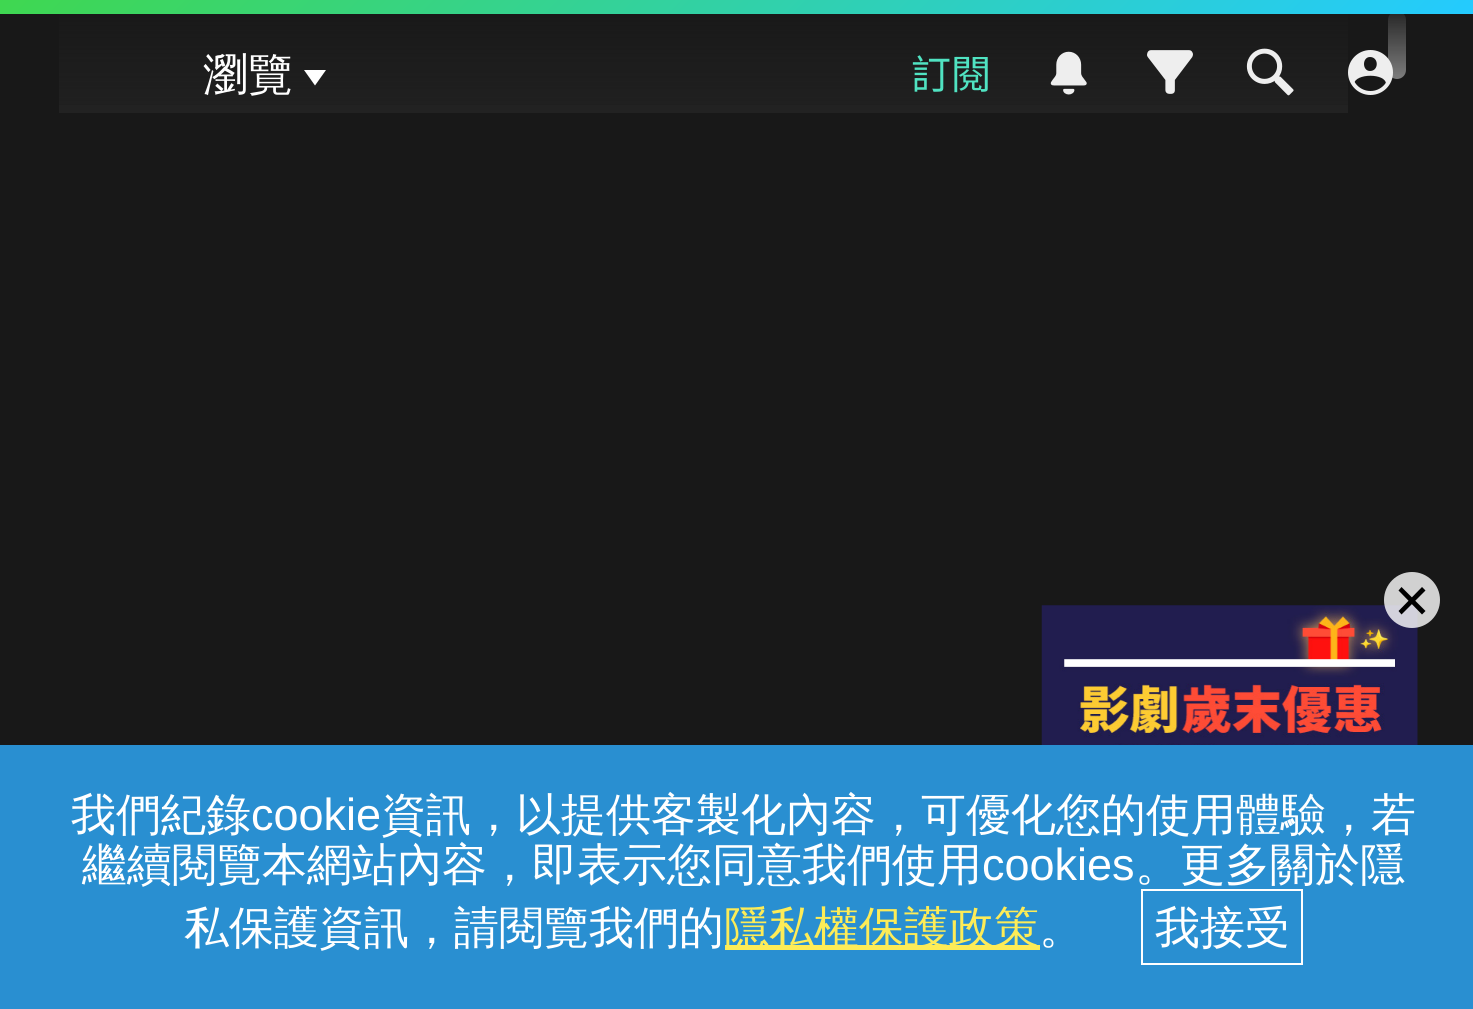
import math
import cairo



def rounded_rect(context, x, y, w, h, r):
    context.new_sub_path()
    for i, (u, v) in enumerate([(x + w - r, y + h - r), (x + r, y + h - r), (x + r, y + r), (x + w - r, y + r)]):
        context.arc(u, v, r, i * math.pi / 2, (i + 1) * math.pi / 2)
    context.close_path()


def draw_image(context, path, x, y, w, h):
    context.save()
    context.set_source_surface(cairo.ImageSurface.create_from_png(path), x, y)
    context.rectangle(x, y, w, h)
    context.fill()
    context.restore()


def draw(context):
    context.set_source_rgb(24 / 255, 24 / 255, 24 / 255)
    context.paint()
    context.set_source_rgb(34 / 255, 34 / 255, 34 / 255)
    context.rectangle(59, 14, 1289, 99)
    context.fill()
    context.set_source_rgb(197 / 255, 197 / 255, 197 / 255)
    rounded_rect(context, 1388, 11, 18, 68, 9)
    context.fill()
    gradient = cairo.LinearGradient(737, 0, 737, 135)
    gradient.add_color_stop_rgba(0, 24 / 255, 24 / 255, 24 / 255, 1)
    gradient.add_color_stop_rgba(1, 24 / 255, 24 / 255, 24 / 255, 0)
    context.set_source(gradient)
    context.rectangle(59, 14, 1347, 91)
    context.fill()
    gradient = cairo.LinearGradient(361, -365, 1112, 379)
    gradient.add_color_stop_rgba(0, 63 / 255, 215 / 255, 80 / 255, 1)
    gradient.add_color_stop_rgba(1, 36 / 255, 203 / 255, 1, 1)
    context.set_source(gradient)
    context.rectangle(0, 0, 1473, 14)
    context.fill()
    context.set_source_rgb(1, 1, 1)
    context.new_path()
    context.move_to(304, 70)
    context.line_to(326, 70)
    context.line_to(315, 85.5)
    context.close_path()
    context.fill()
    draw_image(context, "images/1.png", 1050, 51, 37, 44)
    draw_image(context, "images/2.png", 1147, 50, 46, 44)
    draw_image(context, "images/3.png", 1246, 48, 48, 48)
    context.set_source_rgb(238 / 255, 238 / 255, 238 / 255)
    context.set_fill_rule(cairo.FillRule.EVEN_ODD)
    context.new_path()
    context.move_to(1384, 87)
    context.curve_to(1367, 107, 1337, 77, 1356, 58)
    context.curve_to(1375, 38, 1404, 69, 1384, 87)
    context.close_path()
    context.move_to(1384, 87)
    context.line_to(1386, 84)
    context.curve_to(1386, 73, 1355, 73, 1354, 84)
    context.curve_to(1361, 94, 1376, 94, 1384, 87)
    context.close_path()
    context.move_to(1370, 57)
    context.curve_to(1362, 57, 1362, 71, 1370, 71)
    context.curve_to(1379, 71, 1379, 57, 1370, 57)
    context.close_path()
    context.fill()
    context.arc(1370.5, 72.5, 20.5, 0, 2 * math.pi)
    context.set_line_width(4)
    context.stroke()
    draw_image(context, "images/4.png", 1041, 605, 377, 140)
    context.set_source_rgba(1, 1, 1, 0.8)
    context.arc(1412, 600, 28, 0, 2 * math.pi)
    context.fill()
    context.set_source_rgb(0, 0, 0)
    context.set_fill_rule(cairo.FillRule.WINDING)
    context.new_path()
    context.move_to(1398.5, 611)
    context.line_to(1422, 587)
    context.line_to(1425.5, 590.5)
    context.line_to(1401.5, 614.5)
    context.close_path()
    context.fill()
    context.new_path()
    context.move_to(1401.5, 587)
    context.line_to(1425.5, 611)
    context.line_to(1422, 614.5)
    context.line_to(1398.5, 590.5)
    context.close_path()
    context.fill()
    context.set_source_rgb(41 / 255, 143 / 255, 209 / 255)
    context.rectangle(0, 745, 1473, 264)
    context.fill()
    context.set_source_rgb(253 / 255, 236 / 255, 87 / 255)
    context.rectangle(725, 945, 315, 5)
    context.fill()
    context.rectangle(1142, 890, 160, 74)
    context.set_source_rgb(1, 1, 1)
    context.set_line_width(2)
    context.stroke()
    context.select_font_face("WenQuanYi Zen Hei Medium")
    context.set_font_size(45)
    context.move_to(203, 90)
    context.show_text("瀏覽")
    context.select_font_face("Noto Sans TC Thin")
    context.set_font_size(40)
    context.set_source_rgb(80 / 255, 227 / 255, 194 / 255)
    context.move_to(911, 89)
    context.show_text("訂閱")
    context.select_font_face("WenQuanYi Zen Hei Medium")
    context.set_font_size(45)
    context.set_source_rgb(1, 1, 1)
    context.move_to(71, 830)
    context.show_text("我們紀錄")
    context.select_font_face("Liberation Sans")
    context.move_to(251, 830)
    context.show_text("cookie")
    context.select_font_face("WenQuanYi Zen Hei Medium")
    context.move_to(381, 830)
    context.show_text("資訊，以提供客製化內容，可優化您的使用體驗，若")
    context.move_to(82, 880)
    context.show_text("繼續閱覽本網站內容，即表示您同意我們使用")
    context.select_font_face("Liberation Sans")
    context.move_to(982, 880)
    context.show_text("cookies")
    context.select_font_face("WenQuanYi Zen Hei Medium")
    context.move_to(1135, 880)
    context.show_text("。更多關於隱")
    context.move_to(184, 943)
    context.show_text("私保護資訊，請閱覽我們的")
    context.set_source_rgb(253 / 255, 236 / 255, 87 / 255)
    context.move_to(724, 943)
    context.show_text("隱私權保護政策")
    context.set_source_rgb(1, 1, 1)
    context.move_to(1039, 943)
    context.show_text("。")
    context.move_to(1155, 943)
    context.show_text("我接受")


surface = cairo.ImageSurface(cairo.Format.RGB24, 1473, 1009)
context = cairo.Context(surface)
options = cairo.FontOptions()
options.set_hint_metrics(cairo.HintMetrics.OFF)
options.set_hint_style(cairo.HintStyle.NONE)
context.set_font_options(options)
context.set_miter_limit(4)
draw(context)
surface.write_to_png("out.png")
